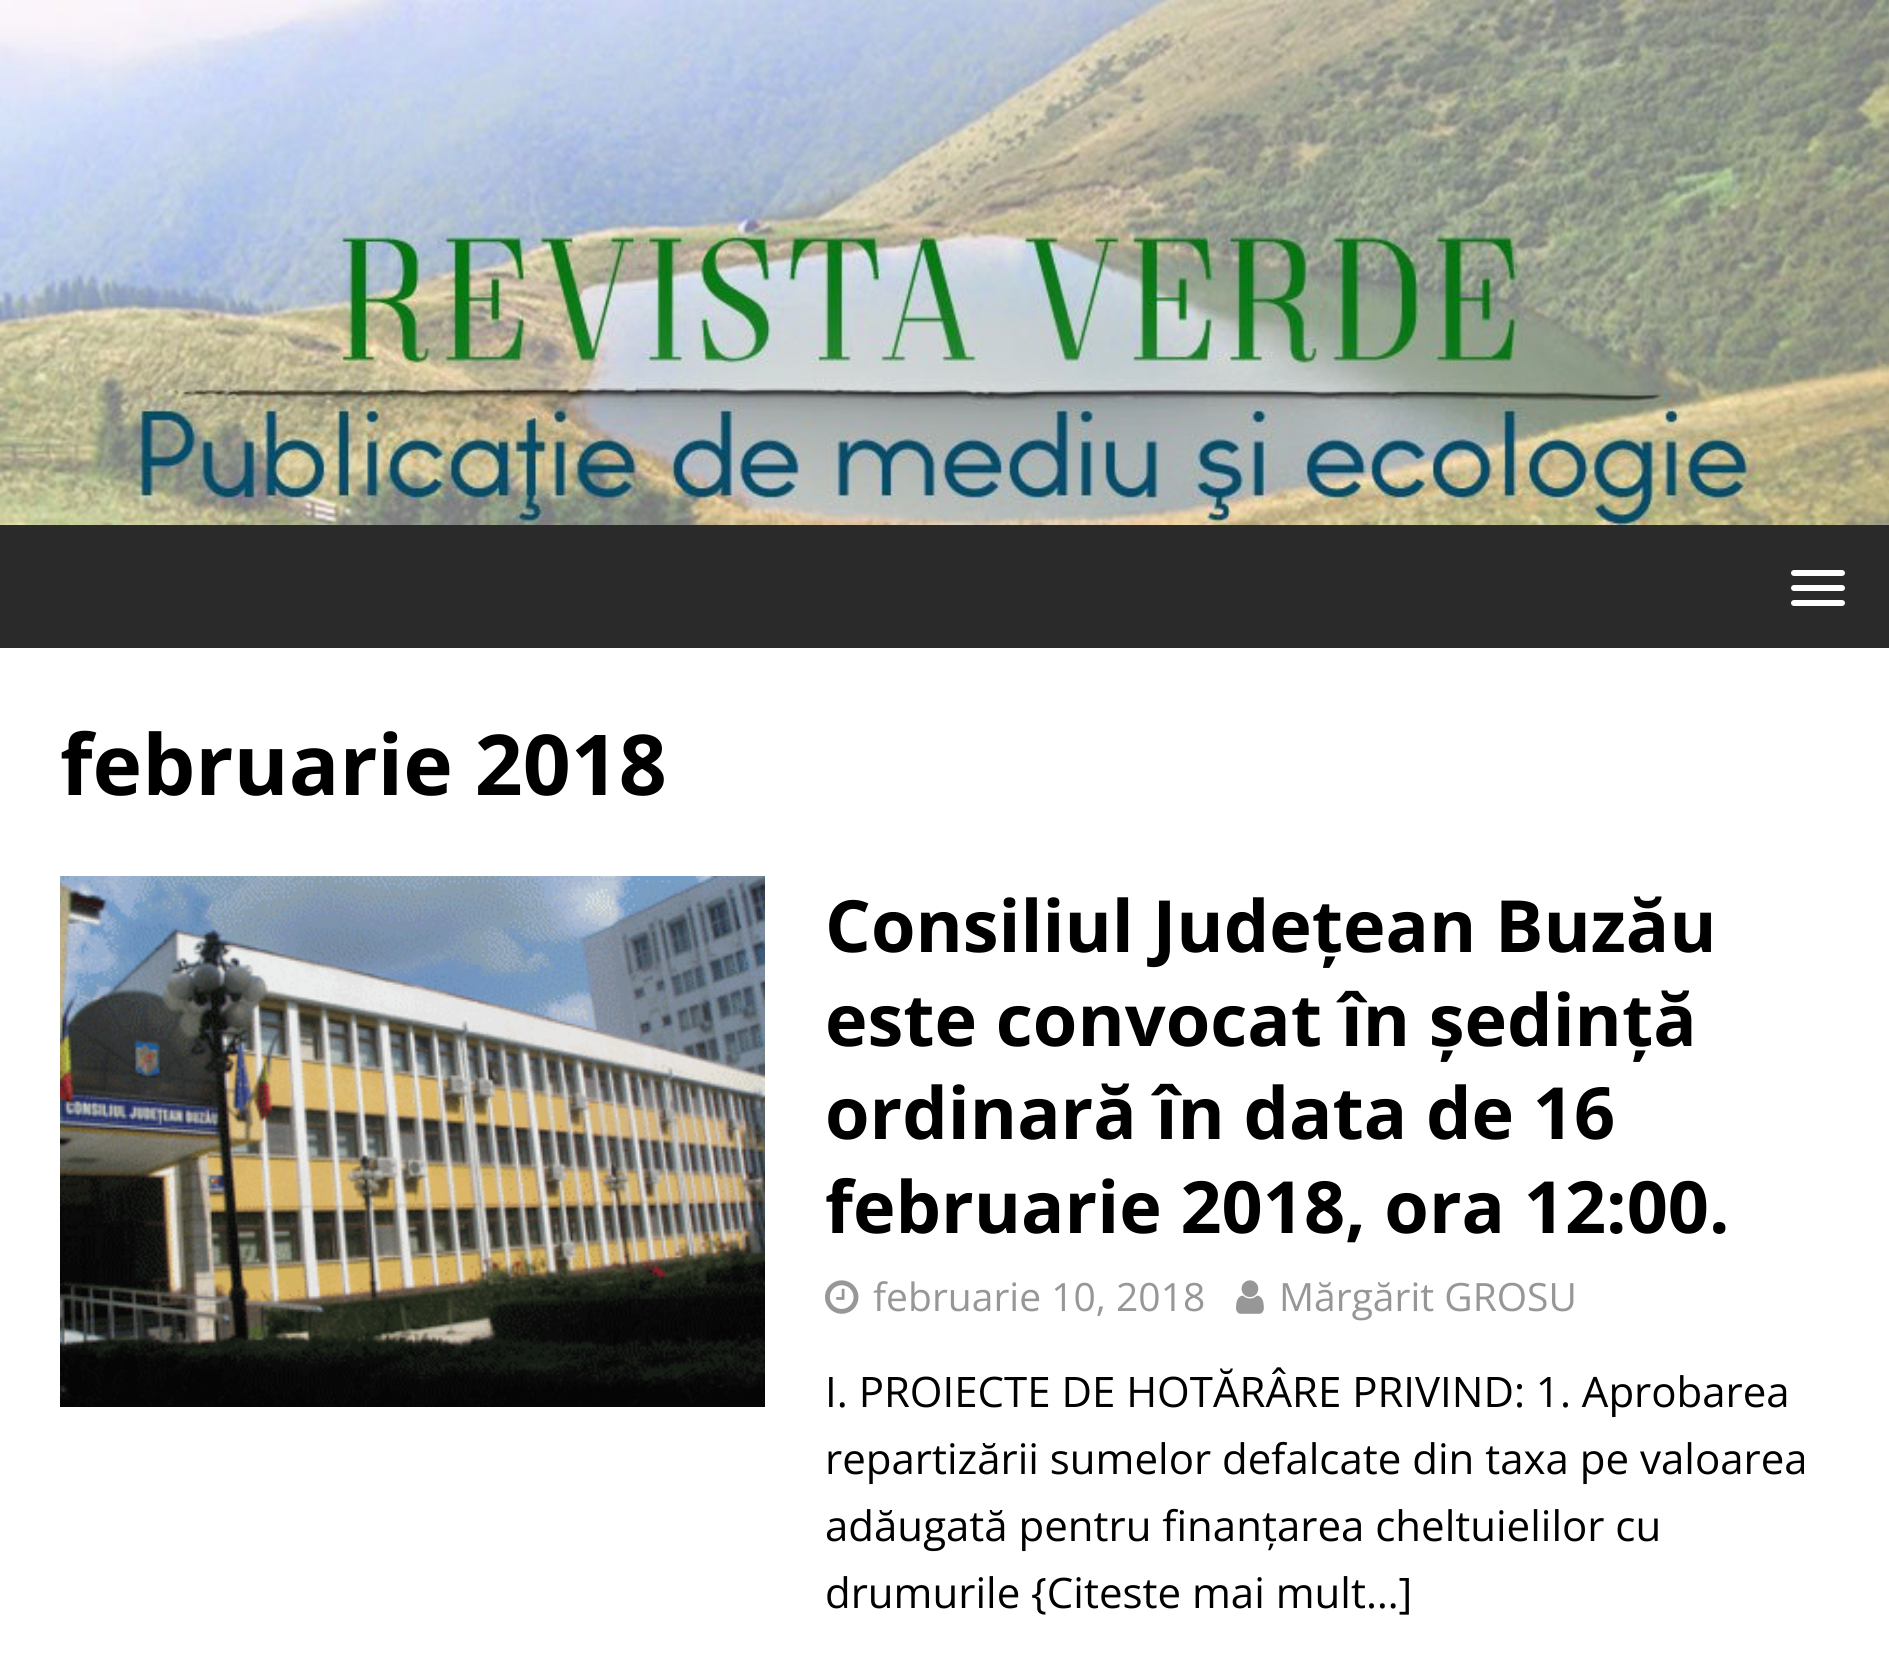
import math
import cairo



def rounded_rect(context, x, y, w, h, r):
    context.new_sub_path()
    for i, (u, v) in enumerate([(x + w - r, y + h - r), (x + r, y + h - r), (x + r, y + r), (x + w - r, y + r)]):
        context.arc(u, v, r, i * math.pi / 2, (i + 1) * math.pi / 2)
    context.close_path()


def draw_image(context, path, x, y, w, h):
    context.save()
    context.set_source_surface(cairo.ImageSurface.create_from_png(path), x, y)
    context.rectangle(x, y, w, h)
    context.fill()
    context.restore()


def draw(context):
    context.set_source_rgb(42 / 255, 42 / 255, 42 / 255)
    context.paint()
    draw_image(context, "images/1.png", 0, 0, 1889, 525)
    context.set_source_rgb(1, 1, 1)
    rounded_rect(context, 1791, 570, 54, 6, 3)
    context.fill()
    rounded_rect(context, 1791, 585, 54, 6, 3)
    context.fill()
    rounded_rect(context, 1791, 600, 54, 6, 3)
    context.fill()
    context.rectangle(0, 648, 1889, 1025)
    context.fill()
    draw_image(context, "images/2.png", 60, 876, 705, 531)
    draw_image(context, "images/3.png", 825, 1280, 34, 34)
    draw_image(context, "images/4.png", 1236, 1280, 28, 34)
    context.select_font_face("Open Sans", cairo.FontSlant.NORMAL, cairo.FontWeight.BOLD)
    context.set_font_size(84)
    context.set_source_rgb(0, 0, 0)
    context.move_to(60, 795)
    context.show_text("februarie 2018")
    context.set_font_size(72)
    context.move_to(825, 952)
    context.show_text("Consiliul Județean Buzău")
    context.move_to(825, 1046)
    context.show_text("este convocat în ședință")
    context.move_to(825, 1139)
    context.show_text("ordinară în data de 16")
    context.move_to(825, 1233)
    context.show_text("februarie 2018, ora 12:00.")
    context.select_font_face("Open Sans")
    context.set_font_size(39)
    context.set_source_rgb(151 / 255, 151 / 255, 151 / 255)
    context.move_to(873, 1311)
    context.show_text("februarie 10, 2018")
    context.move_to(1279, 1311)
    context.show_text("Mărgărit GROSU")
    context.set_font_size(42)
    context.set_source_rgb(0, 0, 0)
    context.move_to(825, 1407)
    context.show_text("I. PROIECTE DE HOTĂRÂRE PRIVIND: 1. Aprobarea")
    context.move_to(825, 1474)
    context.show_text("repartizării sumelor defalcate din taxa pe valoarea")
    context.move_to(825, 1541)
    context.show_text("adăugată pentru finanțarea cheltuielilor cu")
    context.move_to(825, 1608)
    context.show_text("drumurile {Citeste mai mult…]")


surface = cairo.ImageSurface(cairo.Format.RGB24, 1889, 1673)
context = cairo.Context(surface)
options = cairo.FontOptions()
options.set_hint_metrics(cairo.HintMetrics.OFF)
options.set_hint_style(cairo.HintStyle.NONE)
context.set_font_options(options)
context.set_miter_limit(4)
draw(context)
surface.write_to_png("out.png")
